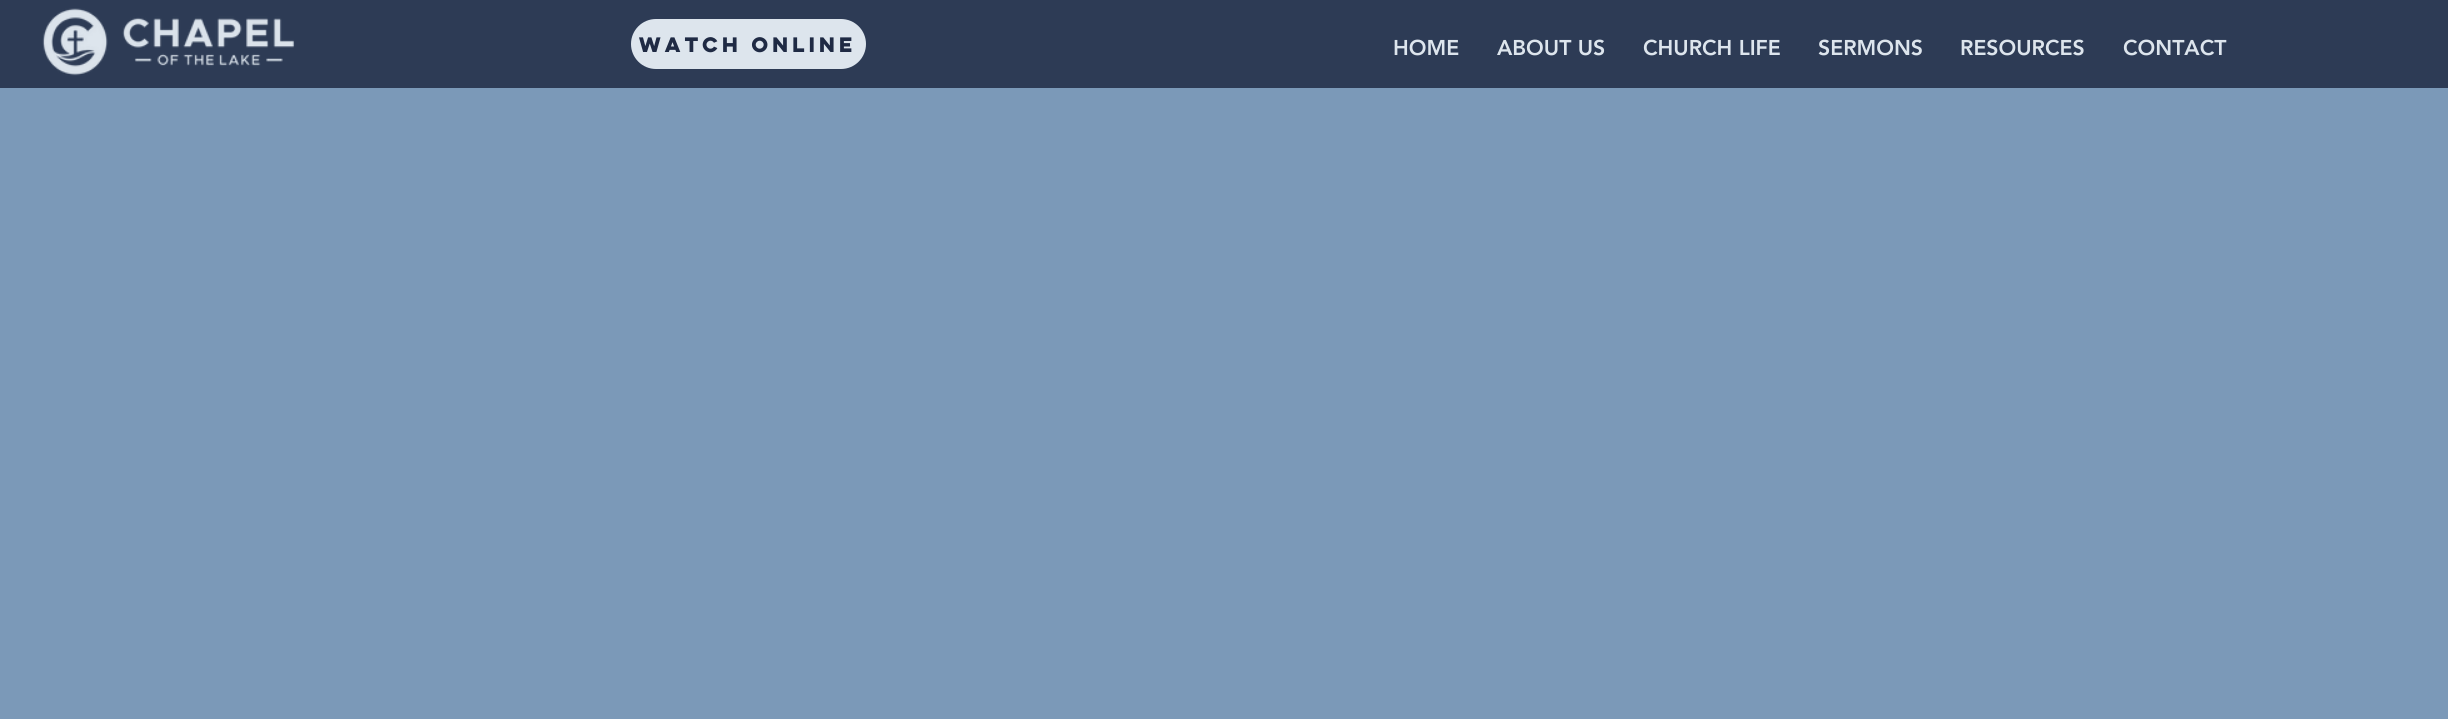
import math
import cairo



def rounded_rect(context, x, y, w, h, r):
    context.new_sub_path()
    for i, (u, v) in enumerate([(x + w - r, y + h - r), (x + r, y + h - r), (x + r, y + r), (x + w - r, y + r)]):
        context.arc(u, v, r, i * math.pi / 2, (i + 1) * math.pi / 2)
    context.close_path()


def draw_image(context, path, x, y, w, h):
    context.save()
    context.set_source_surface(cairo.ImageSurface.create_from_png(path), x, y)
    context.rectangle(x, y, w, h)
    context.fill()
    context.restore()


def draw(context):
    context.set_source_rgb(123 / 255, 153 / 255, 184 / 255)
    context.paint()
    context.set_source_rgb(45 / 255, 59 / 255, 85 / 255)
    context.rectangle(0, 0, 2448, 88)
    context.fill()
    draw_image(context, "images/1.png", 42, 8, 253, 68)
    context.set_source_rgb(221 / 255, 229 / 255, 237 / 255)
    rounded_rect(context, 631, 19, 235, 50, 25)
    context.fill()
    context.select_font_face("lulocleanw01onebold", cairo.FontSlant.NORMAL, cairo.FontWeight.BOLD)
    context.set_font_size(18.75)
    context.set_source_rgb(31 / 255, 42 / 255, 68 / 255)
    context.move_to(639, 52)
    context.show_text("WATCH ONLINE")
    context.select_font_face("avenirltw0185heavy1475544 Black")
    context.set_font_size(21.25)
    context.set_source_rgb(221 / 255, 229 / 255, 237 / 255)
    context.move_to(1393, 55)
    context.show_text("HOME")
    context.move_to(1497, 55)
    context.show_text("ABOUT US")
    context.move_to(1643, 55)
    context.show_text("CHURCH LIFE")
    context.move_to(1818, 55)
    context.show_text("SERMONS")
    context.move_to(1960, 55)
    context.show_text("RESOURCES")
    context.move_to(2123, 55)
    context.show_text("CONTACT")


surface = cairo.ImageSurface(cairo.Format.RGB24, 2448, 719)
context = cairo.Context(surface)
options = cairo.FontOptions()
options.set_hint_metrics(cairo.HintMetrics.OFF)
options.set_hint_style(cairo.HintStyle.NONE)
context.set_font_options(options)
context.set_miter_limit(4)
draw(context)
surface.write_to_png("out.png")
